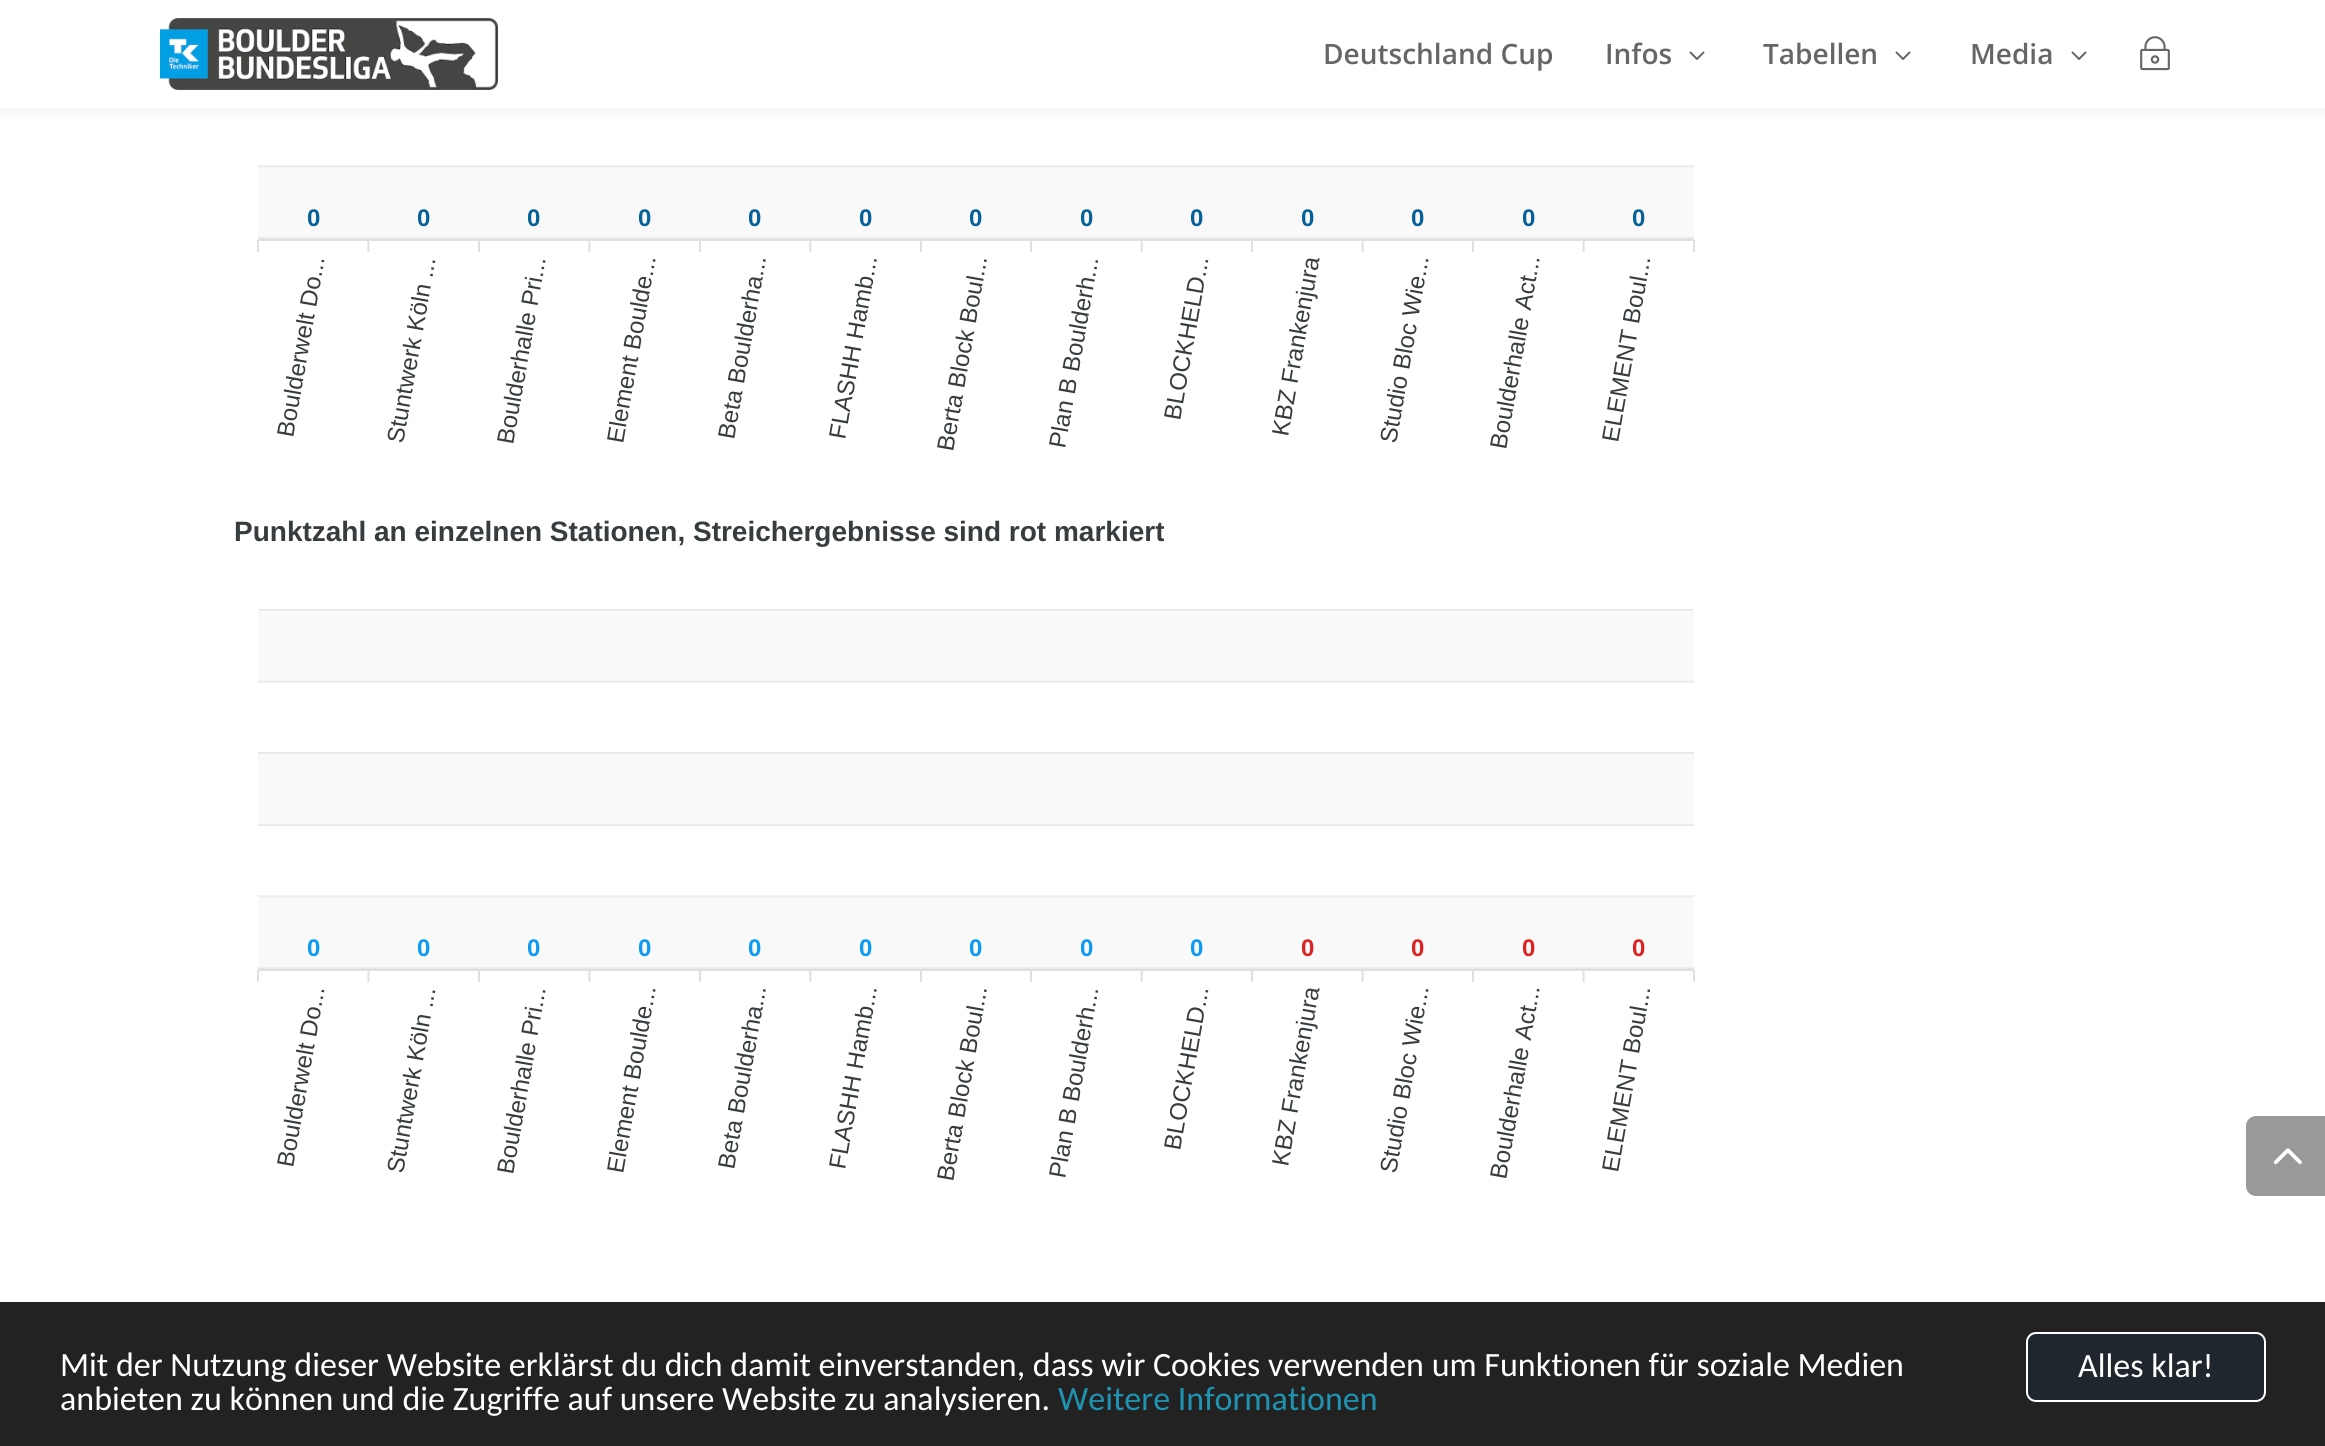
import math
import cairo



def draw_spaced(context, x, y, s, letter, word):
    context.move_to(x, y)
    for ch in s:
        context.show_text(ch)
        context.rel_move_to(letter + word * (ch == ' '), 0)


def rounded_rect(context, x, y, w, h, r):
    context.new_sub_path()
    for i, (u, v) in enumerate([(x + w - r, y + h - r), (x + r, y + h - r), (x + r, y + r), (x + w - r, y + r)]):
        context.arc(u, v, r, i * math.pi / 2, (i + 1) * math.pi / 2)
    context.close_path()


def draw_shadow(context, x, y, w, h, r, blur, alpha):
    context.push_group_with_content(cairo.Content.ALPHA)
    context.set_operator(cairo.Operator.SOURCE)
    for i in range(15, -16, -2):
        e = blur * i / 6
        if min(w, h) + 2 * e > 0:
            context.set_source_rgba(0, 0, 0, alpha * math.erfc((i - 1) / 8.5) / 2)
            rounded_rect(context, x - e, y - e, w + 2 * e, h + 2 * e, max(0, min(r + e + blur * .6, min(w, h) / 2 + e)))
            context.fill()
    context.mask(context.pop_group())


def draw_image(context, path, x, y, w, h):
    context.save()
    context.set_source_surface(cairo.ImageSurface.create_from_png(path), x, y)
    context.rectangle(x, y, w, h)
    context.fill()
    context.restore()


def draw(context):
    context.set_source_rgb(1, 1, 1)
    context.paint()
    context.set_source_rgb(0, 0, 0)
    draw_shadow(context, 0, 0, 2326, 108, 0, 7, 0.1)
    context.set_source_rgb(1, 1, 1)
    context.rectangle(0, 0, 2325, 108)
    context.fill()
    draw_image(context, "images/1.png", 160, 18, 338, 72)
    draw_image(context, "images/2.png", 1689, 51, 16, 9)
    draw_image(context, "images/2.png", 1895, 51, 16, 9)
    draw_image(context, "images/2.png", 2071, 51, 16, 9)
    draw_image(context, "images/3.png", 2140, 36, 30, 35)
    draw_image(context, "images/4.png", 257, 165, 1438, 87)
    draw_image(context, "images/5.png", 257, 609, 1438, 373)
    context.set_source_rgb(153 / 255, 153 / 255, 153 / 255)
    context.new_path()
    context.move_to(2256, 1116)
    context.line_to(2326, 1116)
    context.line_to(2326, 1196)
    context.line_to(2256, 1196)
    context.curve_to(2250.5, 1196, 2246, 1191.5, 2246, 1186)
    context.line_to(2246, 1126)
    context.curve_to(2246, 1120.5, 2250.5, 1116, 2256, 1116)
    context.close_path()
    context.fill()
    draw_image(context, "images/6.png", 2273, 1148, 29, 17)
    context.set_source_rgb(34 / 255, 34 / 255, 34 / 255)
    context.rectangle(0, 1302, 2325, 144)
    context.fill()
    context.set_source_rgb(32 / 255, 38 / 255, 46 / 255)
    rounded_rect(context, 2027, 1333, 238, 68, 9)
    context.fill_preserve()
    context.set_source_rgb(1, 1, 1)
    context.stroke()
    context.select_font_face("Open Sans SemiBold")
    context.set_font_size(28)
    context.set_source_rgb(102 / 255, 102 / 255, 102 / 255)
    context.move_to(1323, 64)
    context.show_text("Deutschland Cup")
    context.move_to(1605, 64)
    context.show_text("Infos")
    context.move_to(1763, 64)
    context.show_text("Tabellen")
    context.move_to(1970, 64)
    context.show_text("Media")
    context.select_font_face("Liberation Sans", cairo.FontSlant.NORMAL, cairo.FontWeight.BOLD)
    context.set_font_size(24)
    context.set_source_rgb(6 / 255, 97 / 255, 153 / 255)
    context.move_to(307, 226)
    context.show_text("0")
    context.move_to(417, 226)
    context.show_text("0")
    context.move_to(527, 226)
    context.show_text("0")
    context.move_to(638, 226)
    context.show_text("0")
    context.move_to(748, 226)
    context.show_text("0")
    context.move_to(859, 226)
    context.show_text("0")
    context.move_to(969, 226)
    context.show_text("0")
    context.move_to(1080, 226)
    context.show_text("0")
    context.move_to(1190, 226)
    context.show_text("0")
    context.move_to(1301, 226)
    context.show_text("0")
    context.move_to(1411, 226)
    context.show_text("0")
    context.move_to(1522, 226)
    context.show_text("0")
    context.move_to(1632, 226)
    context.show_text("0")
    context.select_font_face("Liberation Sans")
    context.set_source_rgb(55 / 255, 61 / 255, 63 / 255)
    context.save()
    context.translate(293, 438)
    context.rotate(-80 * math.pi / 180)
    context.move_to(0, 0)
    context.show_text("Boulderwelt Do...")
    context.restore()
    context.save()
    context.translate(403, 444)
    context.rotate(-80 * math.pi / 180)
    context.move_to(0, 0)
    context.show_text("Stuntwerk Köln ...")
    context.restore()
    context.save()
    context.translate(513, 445)
    context.rotate(-80 * math.pi / 180)
    context.move_to(0, 0)
    context.show_text("Boulderhalle Pri...")
    context.restore()
    context.save()
    context.translate(623, 444)
    context.rotate(-80 * math.pi / 180)
    context.move_to(0, 0)
    context.show_text("Element Boulde...")
    context.restore()
    context.save()
    context.translate(734, 440)
    context.rotate(-80 * math.pi / 180)
    context.move_to(0, 0)
    context.show_text("Beta Boulderha...")
    context.restore()
    context.save()
    context.translate(845, 440)
    context.rotate(-80 * math.pi / 180)
    context.move_to(0, 0)
    context.show_text("FLASHH Hamb...")
    context.restore()
    context.save()
    context.translate(953, 452)
    context.rotate(-80 * math.pi / 180)
    context.move_to(0, 0)
    context.show_text("Berta Block Boul...")
    context.restore()
    context.save()
    context.translate(1065, 449)
    context.rotate(-80 * math.pi / 180)
    context.move_to(0, 0)
    context.show_text("Plan B Boulderh...")
    context.restore()
    context.save()
    context.translate(1180, 421)
    context.rotate(-80 * math.pi / 180)
    context.move_to(0, 0)
    context.show_text("BLOCKHELD...")
    context.restore()
    context.save()
    context.translate(1288, 437)
    context.rotate(-80 * math.pi / 180)
    context.move_to(0, 0)
    context.show_text("KBZ Frankenjura")
    context.restore()
    context.save()
    context.translate(1396, 444)
    context.rotate(-80 * math.pi / 180)
    context.move_to(0, 0)
    context.show_text("Studio Bloc Wie...")
    context.restore()
    context.save()
    context.translate(1506, 450)
    context.rotate(-80 * math.pi / 180)
    draw_spaced(context, 0, 0, "Boulderhalle Act...", 0, 1)
    context.restore()
    context.save()
    context.translate(1618, 443)
    context.rotate(-80 * math.pi / 180)
    context.move_to(0, 0)
    context.show_text("ELEMENT Boul...")
    context.restore()
    context.select_font_face("Liberation Sans", cairo.FontSlant.NORMAL, cairo.FontWeight.BOLD)
    context.set_font_size(28)
    context.move_to(234, 541)
    context.show_text("Punktzahl an einzelnen Stationen, Streichergebnisse sind rot markiert")
    context.set_font_size(24)
    context.set_source_rgb(12 / 255, 154 / 255, 242 / 255)
    context.move_to(307, 956)
    context.show_text("0")
    context.move_to(417, 956)
    context.show_text("0")
    context.move_to(527, 956)
    context.show_text("0")
    context.move_to(638, 956)
    context.show_text("0")
    context.move_to(748, 956)
    context.show_text("0")
    context.move_to(859, 956)
    context.show_text("0")
    context.move_to(969, 956)
    context.show_text("0")
    context.move_to(1080, 956)
    context.show_text("0")
    context.move_to(1190, 956)
    context.show_text("0")
    context.set_source_rgb(221 / 255, 34 / 255, 34 / 255)
    context.move_to(1301, 956)
    context.show_text("0")
    context.move_to(1411, 956)
    context.show_text("0")
    context.move_to(1522, 956)
    context.show_text("0")
    context.move_to(1632, 956)
    context.show_text("0")
    context.select_font_face("Liberation Sans")
    context.set_source_rgb(55 / 255, 61 / 255, 63 / 255)
    context.save()
    context.translate(293, 1168)
    context.rotate(-80 * math.pi / 180)
    context.move_to(0, 0)
    context.show_text("Boulderwelt Do...")
    context.restore()
    context.save()
    context.translate(403, 1174)
    context.rotate(-80 * math.pi / 180)
    context.move_to(0, 0)
    context.show_text("Stuntwerk Köln ...")
    context.restore()
    context.save()
    context.translate(513, 1175)
    context.rotate(-80 * math.pi / 180)
    context.move_to(0, 0)
    context.show_text("Boulderhalle Pri...")
    context.restore()
    context.save()
    context.translate(623, 1174)
    context.rotate(-80 * math.pi / 180)
    context.move_to(0, 0)
    context.show_text("Element Boulde...")
    context.restore()
    context.save()
    context.translate(734, 1170)
    context.rotate(-80 * math.pi / 180)
    context.move_to(0, 0)
    context.show_text("Beta Boulderha...")
    context.restore()
    context.save()
    context.translate(845, 1170)
    context.rotate(-80 * math.pi / 180)
    context.move_to(0, 0)
    context.show_text("FLASHH Hamb...")
    context.restore()
    context.save()
    context.translate(953, 1182)
    context.rotate(-80 * math.pi / 180)
    context.move_to(0, 0)
    context.show_text("Berta Block Boul...")
    context.restore()
    context.save()
    context.translate(1065, 1179)
    context.rotate(-80 * math.pi / 180)
    context.move_to(0, 0)
    context.show_text("Plan B Boulderh...")
    context.restore()
    context.save()
    context.translate(1180, 1151)
    context.rotate(-80 * math.pi / 180)
    context.move_to(0, 0)
    context.show_text("BLOCKHELD...")
    context.restore()
    context.save()
    context.translate(1288, 1167)
    context.rotate(-80 * math.pi / 180)
    context.move_to(0, 0)
    context.show_text("KBZ Frankenjura")
    context.restore()
    context.save()
    context.translate(1396, 1174)
    context.rotate(-80 * math.pi / 180)
    context.move_to(0, 0)
    context.show_text("Studio Bloc Wie...")
    context.restore()
    context.save()
    context.translate(1506, 1180)
    context.rotate(-80 * math.pi / 180)
    draw_spaced(context, 0, 0, "Boulderhalle Act...", 0, 1)
    context.restore()
    context.save()
    context.translate(1618, 1173)
    context.rotate(-80 * math.pi / 180)
    context.move_to(0, 0)
    context.show_text("ELEMENT Boul...")
    context.restore()
    context.select_font_face("Carlito")
    context.set_font_size(34)
    context.set_source_rgb(1, 1, 1)
    context.move_to(60, 1376)
    context.show_text("Mit der Nutzung dieser Website erklärst du dich damit einverstanden, dass wir Cookies verwenden um Funktionen für soziale Medien")
    context.move_to(60, 1410)
    context.show_text("anbieten zu können und die Zugriffe auf unsere Website zu analysieren.")
    context.set_source_rgb(31 / 255, 148 / 255, 178 / 255)
    context.move_to(1058, 1410)
    context.show_text("Weitere Informationen")
    context.set_source_rgb(1, 1, 1)
    context.move_to(2078, 1377)
    context.show_text("Alles klar!")


surface = cairo.ImageSurface(cairo.Format.RGB24, 2325, 1446)
context = cairo.Context(surface)
options = cairo.FontOptions()
options.set_hint_metrics(cairo.HintMetrics.OFF)
options.set_hint_style(cairo.HintStyle.NONE)
context.set_font_options(options)
context.set_miter_limit(4)
draw(context)
surface.write_to_png("out.png")
